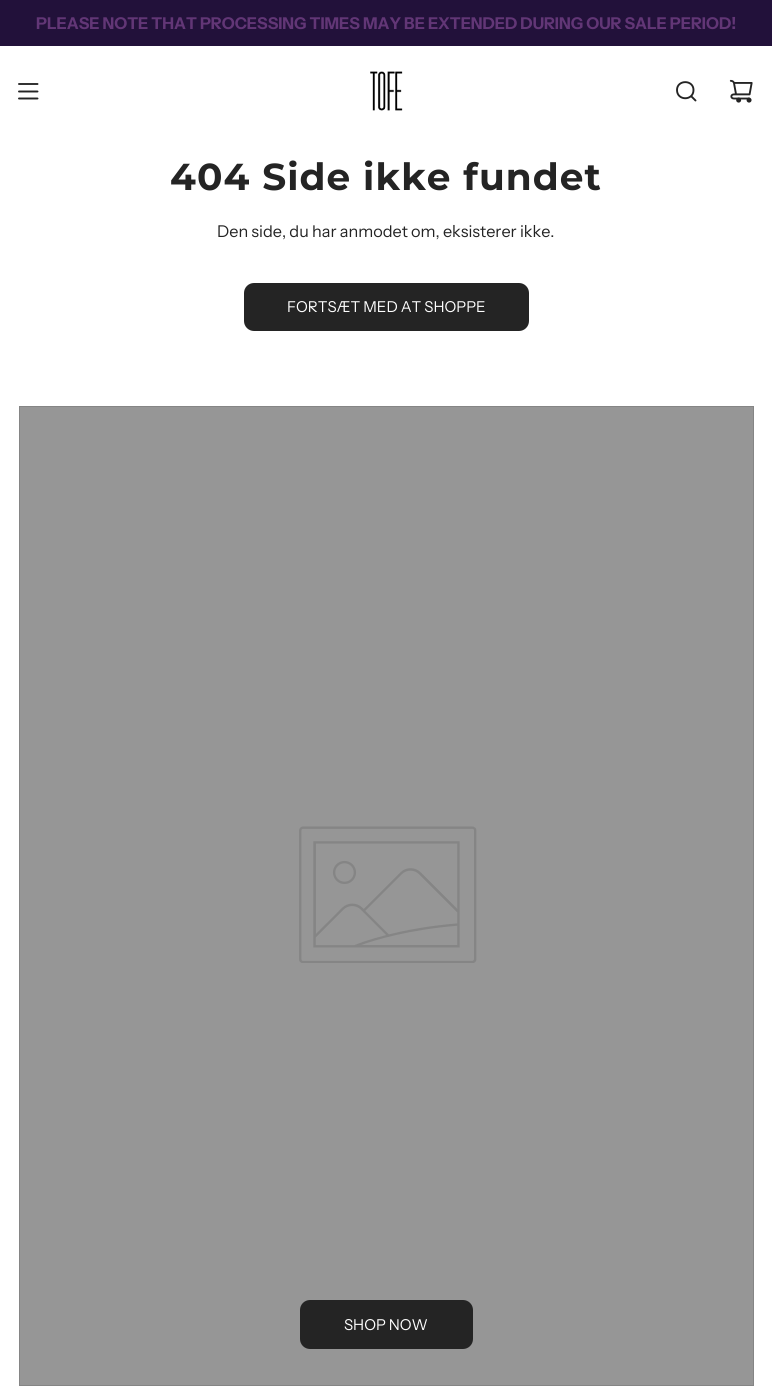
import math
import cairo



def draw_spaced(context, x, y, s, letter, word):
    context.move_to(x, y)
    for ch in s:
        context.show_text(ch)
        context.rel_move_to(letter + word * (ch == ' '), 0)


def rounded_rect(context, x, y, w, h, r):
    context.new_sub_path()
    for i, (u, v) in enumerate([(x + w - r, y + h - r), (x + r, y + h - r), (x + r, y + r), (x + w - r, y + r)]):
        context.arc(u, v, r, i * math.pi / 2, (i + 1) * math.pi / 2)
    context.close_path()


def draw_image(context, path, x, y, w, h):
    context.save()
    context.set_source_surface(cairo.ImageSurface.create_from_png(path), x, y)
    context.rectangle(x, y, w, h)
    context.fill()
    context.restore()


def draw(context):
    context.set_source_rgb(1, 1, 1)
    context.paint()
    context.set_source_rgb(34 / 255, 17 / 255, 58 / 255)
    context.rectangle(0, 0, 772, 46)
    context.fill()
    context.new_path()
    context.move_to(19, 84)
    context.line_to(37.5, 84)
    context.move_to(19, 91.5)
    context.line_to(37.5, 91.5)
    context.move_to(19, 98.5)
    context.line_to(37.5, 98.5)
    context.set_source_rgb(36 / 255, 36 / 255, 36 / 255)
    context.set_line_width(1.9)
    context.set_line_cap(cairo.LineCap.ROUND)
    context.set_line_join(cairo.LineJoin.ROUND)
    context.stroke()
    draw_image(context, "images/1.png", 370, 71, 33, 40)
    context.new_path()
    context.move_to(691.5, 96.5)
    context.line_to(695.5, 100.5)
    context.move_to(677, 90)
    context.curve_to(677, 101, 693.5, 101, 693.5, 90)
    context.curve_to(693.5, 79.5, 677, 79.5, 677, 90)
    context.close_path()
    context.stroke()
    draw_image(context, "images/2.png", 729, 79, 24, 24)
    rounded_rect(context, 244, 283, 285, 48, 10)
    context.fill()
    context.set_source_rgb(150 / 255, 150 / 255, 150 / 255)
    context.rectangle(19.5, 406.5, 734, 979)
    context.fill_preserve()
    context.set_source_rgb(133 / 255, 133 / 255, 133 / 255)
    context.set_line_width(1)
    context.set_line_cap(cairo.LineCap.BUTT)
    context.set_line_join(cairo.LineJoin.MITER)
    context.stroke()
    draw_image(context, "images/3.png", 299, 826, 178, 137)
    context.set_source_rgb(36 / 255, 36 / 255, 36 / 255)
    rounded_rect(context, 300, 1300, 173, 49, 10)
    context.fill()
    context.select_font_face("Instrument Sans", cairo.FontSlant.NORMAL, cairo.FontWeight.BOLD)
    context.set_font_size(16.25)
    context.set_source_rgb(98 / 255, 54 / 255, 118 / 255)
    context.move_to(36, 29)
    context.show_text("PLEASE NOTE THAT PROCESSING TIMES MAY BE EXTENDED DURING OUR SALE PERIOD!")
    context.select_font_face("Montserrat", cairo.FontSlant.NORMAL, cairo.FontWeight.BOLD)
    context.set_font_size(37.5)
    context.set_source_rgb(36 / 255, 36 / 255, 36 / 255)
    draw_spaced(context, 170, 190, "404 Side ikke fundet", 1.1, 0)
    context.select_font_face("Instrument Sans")
    context.set_font_size(16.25)
    context.move_to(217, 237)
    context.show_text("Den side, du har anmodet om, eksisterer ikke.")
    context.set_font_size(15)
    context.set_source_rgb(1, 1, 1)
    context.move_to(287, 312)
    context.show_text("FORTSÆT MED AT SHOPPE")
    context.move_to(344, 1330)
    context.show_text("SHOP NOW")


surface = cairo.ImageSurface(cairo.Format.RGB24, 772, 1386)
context = cairo.Context(surface)
options = cairo.FontOptions()
options.set_hint_metrics(cairo.HintMetrics.OFF)
options.set_hint_style(cairo.HintStyle.NONE)
context.set_font_options(options)
context.set_miter_limit(4)
draw(context)
surface.write_to_png("out.png")
